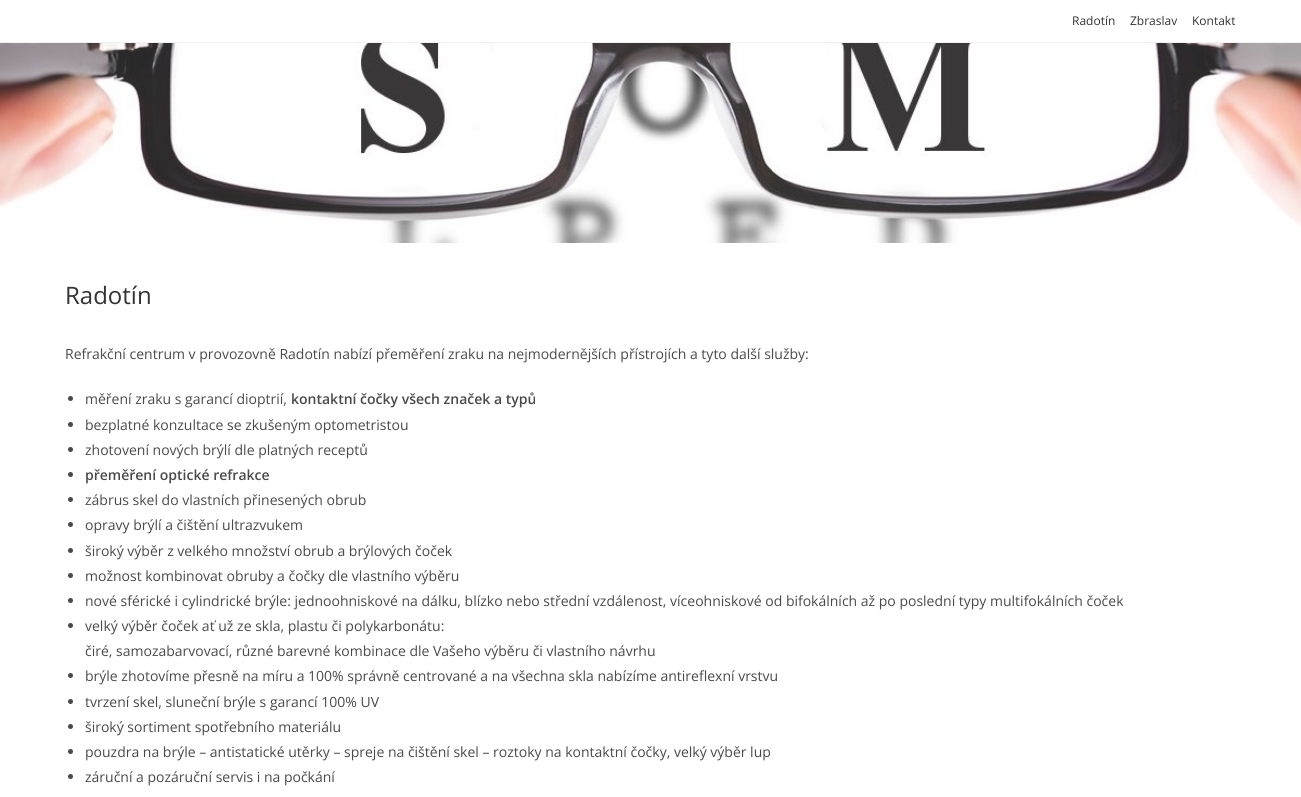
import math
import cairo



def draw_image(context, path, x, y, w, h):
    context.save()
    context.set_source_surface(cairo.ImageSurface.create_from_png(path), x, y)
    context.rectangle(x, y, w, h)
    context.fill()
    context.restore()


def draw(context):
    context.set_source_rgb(1, 1, 1)
    context.paint()
    context.set_source_rgb(241 / 255, 241 / 255, 241 / 255)
    context.rectangle(0, 42, 1301, 1)
    context.fill()
    draw_image(context, "images/1.png", 0, 43, 1301, 200)
    context.set_source_rgb(74 / 255, 74 / 255, 74 / 255)
    context.arc(70.5, 398.5, 2.5, 0, 2 * math.pi)
    context.fill()
    context.arc(70.5, 424.5, 2.5, 0, 2 * math.pi)
    context.fill()
    context.arc(70.5, 449.5, 2.5, 0, 2 * math.pi)
    context.fill()
    context.arc(70.5, 474.5, 2.5, 0, 2 * math.pi)
    context.fill()
    context.arc(70.5, 499.5, 2.5, 0, 2 * math.pi)
    context.fill()
    context.arc(70.5, 524.5, 2.5, 0, 2 * math.pi)
    context.fill()
    context.arc(70.5, 550.5, 2.5, 0, 2 * math.pi)
    context.fill()
    context.arc(70.5, 575.5, 2.5, 0, 2 * math.pi)
    context.fill()
    context.arc(70.5, 600.5, 2.5, 0, 2 * math.pi)
    context.fill()
    context.arc(70.5, 625.5, 2.5, 0, 2 * math.pi)
    context.fill()
    context.arc(70.5, 675.5, 2.5, 0, 2 * math.pi)
    context.fill()
    context.arc(70.5, 701.5, 2.5, 0, 2 * math.pi)
    context.fill()
    context.arc(70.5, 726.5, 2.5, 0, 2 * math.pi)
    context.fill()
    context.arc(70.5, 751.5, 2.5, 0, 2 * math.pi)
    context.fill()
    context.arc(70.5, 776.5, 2.5, 0, 2 * math.pi)
    context.fill()
    context.select_font_face("Open Sans")
    context.set_font_size(12)
    context.set_source_rgb(51 / 255, 51 / 255, 51 / 255)
    context.move_to(1072, 25)
    context.show_text("Radotín")
    context.move_to(1130, 25)
    context.show_text("Zbraslav")
    context.move_to(1192, 25)
    context.show_text("Kontakt")
    context.set_font_size(24)
    context.move_to(65, 304)
    context.show_text("Radotín")
    context.set_font_size(14)
    context.set_source_rgb(74 / 255, 74 / 255, 74 / 255)
    context.move_to(65, 359)
    context.show_text("Refrakční centrum v provozovně Radotín nabízí přeměření zraku na nejmodernějších přístrojích a tyto další služby:")
    context.move_to(85, 404)
    context.show_text("měření zraku s garancí dioptrií,")
    context.select_font_face("Open Sans SemiBold")
    context.move_to(291, 404)
    context.show_text("kontaktní čočky všech značek a typů")
    context.select_font_face("Open Sans")
    context.move_to(85, 430)
    context.show_text("bezplatné konzultace se zkušeným optometristou")
    context.move_to(85, 455)
    context.show_text("zhotovení nových brýlí dle platných receptů")
    context.select_font_face("Open Sans SemiBold")
    context.move_to(85, 480)
    context.show_text("přeměření optické refrakce")
    context.select_font_face("Open Sans")
    context.move_to(85, 505)
    context.show_text("zábrus skel do vlastních přinesených obrub")
    context.move_to(85, 530)
    context.show_text("opravy brýlí a čištění ultrazvukem")
    context.move_to(85, 556)
    context.show_text("široký výběr z velkého množství obrub a brýlových čoček")
    context.move_to(85, 581)
    context.show_text("možnost kombinovat obruby a čočky dle vlastního výběru")
    context.move_to(85, 606)
    context.show_text("nové sférické i cylindrické brýle: jednoohniskové na dálku, blízko nebo střední vzdálenost, víceohniskové od bifokálních až po poslední typy multifokálních čoček")
    context.move_to(85, 631)
    context.show_text("velký výběr čoček ať už ze skla, plastu či polykarbonátu:")
    context.move_to(85, 656)
    context.show_text("čiré, samozabarvovací, různé barevné kombinace dle Vašeho výběru či vlastního návrhu")
    context.move_to(85, 681)
    context.show_text("brýle zhotovíme přesně na míru a 100% správně centrované a na všechna skla nabízíme antireflexní vrstvu")
    context.move_to(85, 707)
    context.show_text("tvrzení skel, sluneční brýle s garancí 100% UV")
    context.move_to(85, 732)
    context.show_text("široký sortiment spotřebního materiálu")
    context.move_to(85, 757)
    context.show_text("pouzdra na brýle – antistatické utěrky – spreje na čištění skel – roztoky na kontaktní čočky, velký výběr lup")
    context.move_to(85, 782)
    context.show_text("záruční a pozáruční servis i na počkání")


surface = cairo.ImageSurface(cairo.Format.RGB24, 1301, 797)
context = cairo.Context(surface)
options = cairo.FontOptions()
options.set_hint_metrics(cairo.HintMetrics.OFF)
options.set_hint_style(cairo.HintStyle.NONE)
context.set_font_options(options)
context.set_miter_limit(4)
draw(context)
surface.write_to_png("out.png")
